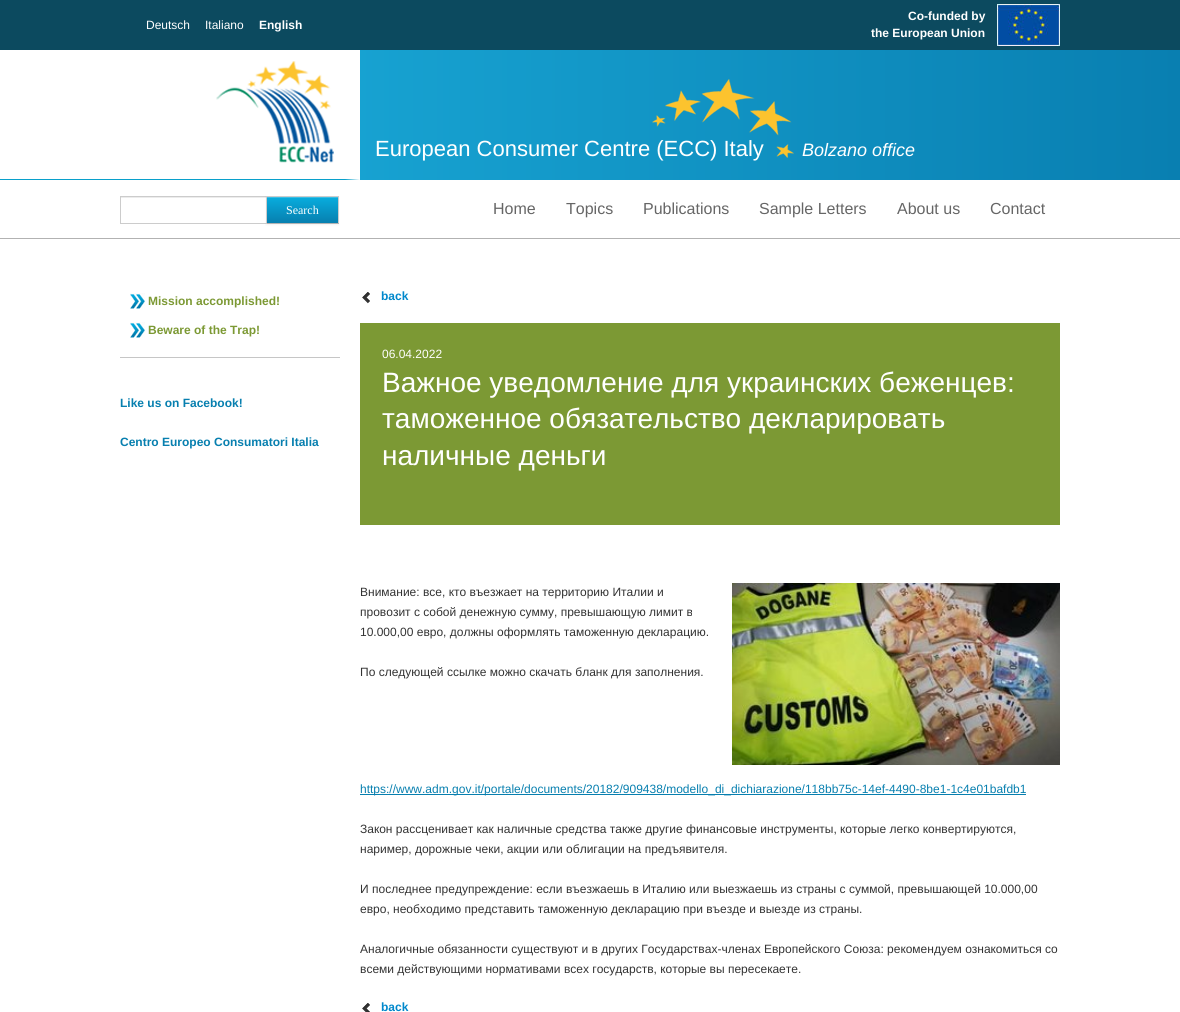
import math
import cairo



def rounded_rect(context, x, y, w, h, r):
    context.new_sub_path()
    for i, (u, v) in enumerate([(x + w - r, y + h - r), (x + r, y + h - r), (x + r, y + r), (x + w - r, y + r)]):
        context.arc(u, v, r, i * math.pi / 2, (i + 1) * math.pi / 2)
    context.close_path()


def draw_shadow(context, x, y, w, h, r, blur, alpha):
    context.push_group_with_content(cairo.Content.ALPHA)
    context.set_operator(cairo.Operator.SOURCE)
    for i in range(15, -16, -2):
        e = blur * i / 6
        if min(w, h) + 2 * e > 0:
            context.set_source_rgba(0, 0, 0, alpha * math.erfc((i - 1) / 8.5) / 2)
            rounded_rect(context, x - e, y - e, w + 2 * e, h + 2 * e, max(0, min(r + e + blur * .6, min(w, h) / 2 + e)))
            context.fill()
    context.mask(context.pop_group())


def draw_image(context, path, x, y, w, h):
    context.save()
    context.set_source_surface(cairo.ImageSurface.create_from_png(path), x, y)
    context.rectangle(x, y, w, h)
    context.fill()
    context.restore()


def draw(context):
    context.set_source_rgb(1, 1, 1)
    context.paint()
    gradient = cairo.LinearGradient(0, 90, 1180, 90)
    gradient.add_color_stop_rgba(0, 29 / 255, 177 / 255, 223 / 255, 1)
    gradient.add_color_stop_rgba(1, 9 / 255, 127 / 255, 177 / 255, 1)
    context.set_source(gradient)
    context.rectangle(360, 50, 820, 130)
    context.fill()
    context.set_source_rgb(12 / 255, 74 / 255, 95 / 255)
    context.rectangle(0, 0, 1180, 50)
    context.fill()
    draw_image(context, "images/1.png", 997, 4, 63, 42)
    draw_image(context, "images/2.png", 216, 61, 118, 102)
    context.set_source_rgb(9 / 255, 160 / 255, 203 / 255)
    context.new_path()
    context.move_to(360, 180)
    context.line_to(-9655, 180)
    context.line_to(-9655, 179)
    context.line_to(345, 179)
    context.close_path()
    context.fill()
    draw_image(context, "images/3.png", 652, 79, 142, 79)
    context.set_source_rgb(178 / 255, 178 / 255, 178 / 255)
    context.rectangle(0, 238, 1180, 1)
    context.fill()
    context.set_source_rgb(236 / 255, 236 / 255, 236 / 255)
    context.rectangle(121, 197, 145, 1)
    context.fill()
    context.rectangle(120.5, 196.5, 146, 27)
    context.set_source_rgb(204 / 255, 204 / 255, 204 / 255)
    context.set_line_width(1)
    context.stroke()
    context.set_source_rgb(0, 0, 0)
    draw_shadow(context, 266, 197, 73, 28, 0, 1, 0.05)
    gradient = cairo.LinearGradient(303, 197, 303, 223)
    gradient.add_color_stop_rgba(0, 8 / 255, 173 / 255, 222 / 255, 1)
    gradient.add_color_stop_rgba(1, 7 / 255, 127 / 255, 175 / 255, 1)
    context.set_source(gradient)
    context.rectangle(267, 198, 71, 25)
    context.fill()
    context.set_source_rgb(57 / 255, 189 / 255, 228 / 255)
    context.rectangle(267, 197, 71, 1)
    context.fill()
    context.set_source_rgb(204 / 255, 204 / 255, 204 / 255)
    context.rectangle(266, 196, 73, 1)
    context.fill()
    context.rectangle(338, 196, 1, 28)
    context.fill()
    context.set_source_rgb(179 / 255, 179 / 255, 179 / 255)
    context.rectangle(266, 223, 73, 1)
    context.fill()
    context.set_source_rgb(204 / 255, 204 / 255, 204 / 255)
    context.rectangle(266, 196, 1, 28)
    context.fill()
    context.set_source_rgb(198 / 255, 198 / 255, 198 / 255)
    context.rectangle(120, 357, 220, 1)
    context.fill()
    draw_image(context, "images/4.png", 130, 293, 15, 16)
    draw_image(context, "images/4.png", 130, 322, 15, 16)
    draw_image(context, "images/5.png", 362, 292, 8, 12)
    context.set_source_rgb(124 / 255, 153 / 255, 52 / 255)
    context.rectangle(360, 323, 700, 202)
    context.fill()
    draw_image(context, "images/6.png", 732, 583, 328, 182)
    context.set_source_rgb(7 / 255, 127 / 255, 175 / 255)
    context.rectangle(360, 794, 666, 1)
    context.fill()
    draw_image(context, "images/7.png", 362, 1003, 8, 9)
    context.select_font_face("Liberation Sans")
    context.set_font_size(12)
    context.set_source_rgb(1, 1, 1)
    context.move_to(146, 29)
    context.show_text("Deutsch")
    context.move_to(205, 29)
    context.show_text("Italiano")
    context.select_font_face("Liberation Sans", cairo.FontSlant.NORMAL, cairo.FontWeight.BOLD)
    context.move_to(259, 29)
    context.show_text("English")
    context.move_to(908, 20)
    context.show_text("Co-funded by")
    context.move_to(871, 37)
    context.show_text("the European Union")
    context.select_font_face("Liberation Sans")
    context.set_font_size(22)
    context.move_to(375, 156)
    context.show_text("European Consumer Centre (ECC) Italy")
    context.select_font_face("Liberation Sans", cairo.FontSlant.ITALIC)
    context.set_font_size(18)
    context.move_to(802, 156)
    context.show_text("Bolzano office")
    context.select_font_face("Liberation Serif")
    context.set_font_size(12)
    context.move_to(286, 214)
    context.show_text("Search")
    context.select_font_face("Liberation Sans")
    context.set_font_size(16)
    context.set_source_rgb(102 / 255, 102 / 255, 102 / 255)
    context.move_to(493, 214)
    context.show_text("Home")
    context.move_to(566, 214)
    context.show_text("Topics")
    context.move_to(643, 214)
    context.show_text("Publications")
    context.move_to(759, 214)
    context.show_text("Sample Letters")
    context.move_to(897, 214)
    context.show_text("About us")
    context.move_to(990, 214)
    context.show_text("Contact")
    context.select_font_face("Liberation Sans", cairo.FontSlant.NORMAL, cairo.FontWeight.BOLD)
    context.set_font_size(12)
    context.set_source_rgb(124 / 255, 153 / 255, 52 / 255)
    context.move_to(148, 305)
    context.show_text("Mission accomplished!")
    context.move_to(148, 334)
    context.show_text("Beware of the Trap!")
    context.set_source_rgb(7 / 255, 127 / 255, 175 / 255)
    context.move_to(120, 407)
    context.show_text("Like us on Facebook!")
    context.move_to(120, 446)
    context.show_text("Centro Europeo Consumatori Italia")
    context.set_source_rgb(0, 136 / 255, 204 / 255)
    context.move_to(381, 300)
    context.show_text("back")
    context.select_font_face("Liberation Sans")
    context.set_source_rgb(1, 1, 1)
    context.move_to(382, 358)
    context.show_text("06.04.2022")
    context.set_font_size(28)
    context.move_to(382, 392)
    context.show_text("Важное уведомление для украинских беженцев:")
    context.move_to(382, 428)
    context.show_text("таможенное обязательство декларировать")
    context.move_to(382, 465)
    context.show_text("наличные деньги")
    context.set_font_size(12)
    context.set_source_rgb(51 / 255, 51 / 255, 51 / 255)
    context.move_to(360, 596)
    context.show_text("Внимание: все, кто въезжает на территорию Италии и")
    context.move_to(360, 616)
    context.show_text("провозит с собой денежную сумму, превышающую лимит в")
    context.move_to(360, 636)
    context.show_text("10.000,00 евро, должны оформлять таможенную декларацию.")
    context.move_to(360, 676)
    context.show_text("По следующей ссылке можно скачать бланк для заполнения.")
    context.set_source_rgb(7 / 255, 127 / 255, 175 / 255)
    context.move_to(360, 793)
    context.show_text("https://www.adm.gov.it/portale/documents/20182/909438/modello_di_dichiarazione/118bb75c-14ef-4490-8be1-1c4e01bafdb1")
    context.set_source_rgb(51 / 255, 51 / 255, 51 / 255)
    context.move_to(360, 833)
    context.show_text("Закон рассценивает как наличные средства также другие финансовые инструменты, которые легко конвертируются,")
    context.move_to(360, 853)
    context.show_text("наример, дорожные чеки, акции или облигации на предъявителя.")
    context.move_to(360, 893)
    context.show_text("И последнее предупреждение: если въезжаешь в Италию или выезжаешь из страны с суммой, превышающей 10.000,00")
    context.move_to(360, 913)
    context.show_text("евро, необходимо представить таможенную декларацию при въезде и выезде из страны.")
    context.move_to(360, 953)
    context.show_text("Аналогичные обязанности существуют и в других Государствах-членах Европейского Союза: рекомендуем ознакомиться со")
    context.move_to(360, 973)
    context.show_text("всеми действующими нормативами всех государств, которые вы пересекаете.")
    context.select_font_face("Liberation Sans", cairo.FontSlant.NORMAL, cairo.FontWeight.BOLD)
    context.set_source_rgb(0, 136 / 255, 204 / 255)
    context.move_to(381, 1011)
    context.show_text("back")


surface = cairo.ImageSurface(cairo.Format.RGB24, 1180, 1012)
context = cairo.Context(surface)
options = cairo.FontOptions()
options.set_hint_metrics(cairo.HintMetrics.OFF)
options.set_hint_style(cairo.HintStyle.NONE)
context.set_font_options(options)
context.set_miter_limit(4)
draw(context)
surface.write_to_png("out.png")
